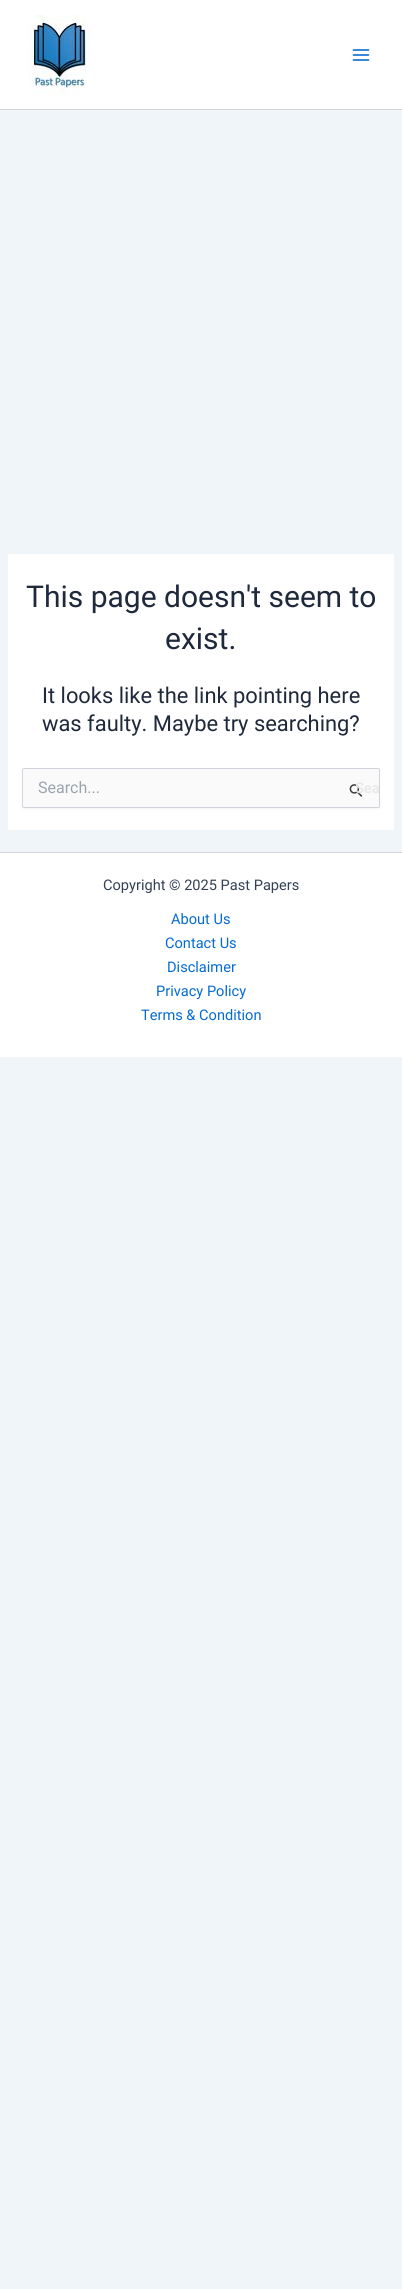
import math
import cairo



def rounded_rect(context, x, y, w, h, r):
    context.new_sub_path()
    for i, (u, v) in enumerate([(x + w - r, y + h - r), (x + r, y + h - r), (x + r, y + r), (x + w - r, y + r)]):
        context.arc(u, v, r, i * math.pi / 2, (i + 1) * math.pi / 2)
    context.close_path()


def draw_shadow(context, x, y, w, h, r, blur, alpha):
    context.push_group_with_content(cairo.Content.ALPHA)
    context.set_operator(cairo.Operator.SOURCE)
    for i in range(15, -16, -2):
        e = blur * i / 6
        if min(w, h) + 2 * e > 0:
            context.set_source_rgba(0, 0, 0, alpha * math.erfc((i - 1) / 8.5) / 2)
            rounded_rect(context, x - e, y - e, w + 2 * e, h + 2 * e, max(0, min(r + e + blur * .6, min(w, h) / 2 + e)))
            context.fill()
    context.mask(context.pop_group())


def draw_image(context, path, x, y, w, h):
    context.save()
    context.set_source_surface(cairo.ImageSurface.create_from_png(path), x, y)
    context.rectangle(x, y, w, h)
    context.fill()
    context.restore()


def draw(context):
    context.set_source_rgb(240 / 255, 245 / 255, 250 / 255)
    context.paint()
    context.set_source_rgb(1, 1, 1)
    context.rectangle(0, 0, 402, 109)
    context.fill()
    context.set_source_rgb(209 / 255, 213 / 255, 219 / 255)
    context.rectangle(0, 109, 402, 1)
    context.fill()
    draw_image(context, "images/1.png", 28, 15, 64, 80)
    draw_image(context, "images/2.png", 352, 49, 18, 12)
    context.set_source_rgb(1, 1, 1)
    context.rectangle(8, 554, 386, 276)
    context.fill()
    context.set_source_rgb(0, 0, 0)
    draw_shadow(context, 22, 769, 358, 40, 2, 1, 0.05)
    context.set_source_rgb(250 / 255, 250 / 255, 250 / 255)
    rounded_rect(context, 22.5, 768.5, 357, 39, 1.5)
    context.fill_preserve()
    context.set_source_rgb(209 / 255, 213 / 255, 219 / 255)
    context.set_line_width(1)
    context.stroke()
    draw_image(context, "images/3.png", 349, 784, 14, 13)
    context.set_source_rgb(1, 1, 1)
    context.rectangle(0, 853, 402, 204)
    context.fill()
    context.set_source_rgb(209 / 255, 213 / 255, 219 / 255)
    context.rectangle(0, 852, 402, 1)
    context.fill()
    context.select_font_face("Roboto")
    context.set_font_size(30)
    context.set_source_rgb(30 / 255, 41 / 255, 59 / 255)
    context.move_to(26, 607)
    context.show_text("This page doesn't seem to")
    context.move_to(165, 649)
    context.show_text("exist.")
    context.set_font_size(21.9)
    context.move_to(42, 703)
    context.show_text("It looks like the link pointing here")
    context.move_to(42, 731)
    context.show_text("was faulty. Maybe try searching?")
    context.set_font_size(16)
    context.set_source_rgb(156 / 255, 163 / 255, 175 / 255)
    context.move_to(38, 793)
    context.show_text("Search...")
    context.select_font_face("Roboto Medium")
    context.set_font_size(14.6)
    context.set_source_rgb(231 / 255, 231 / 255, 231 / 255)
    context.move_to(355, 793)
    context.show_text("Sea")
    context.select_font_face("Roboto")
    context.set_source_rgb(51 / 255, 65 / 255, 85 / 255)
    context.move_to(103, 890)
    context.show_text("Copyright © 2025 Past Papers")
    context.set_source_rgb(4 / 255, 107 / 255, 210 / 255)
    context.move_to(171, 924)
    context.show_text("About Us")
    context.move_to(165, 948)
    context.show_text("Contact Us")
    context.move_to(167, 972)
    context.show_text("Disclaimer")
    context.move_to(156, 996)
    context.show_text("Privacy Policy")
    context.move_to(141, 1020)
    context.show_text("Terms & Condition")


surface = cairo.ImageSurface(cairo.Format.RGB24, 402, 2289)
context = cairo.Context(surface)
options = cairo.FontOptions()
options.set_hint_metrics(cairo.HintMetrics.OFF)
options.set_hint_style(cairo.HintStyle.NONE)
context.set_font_options(options)
context.set_miter_limit(4)
draw(context)
surface.write_to_png("out.png")
